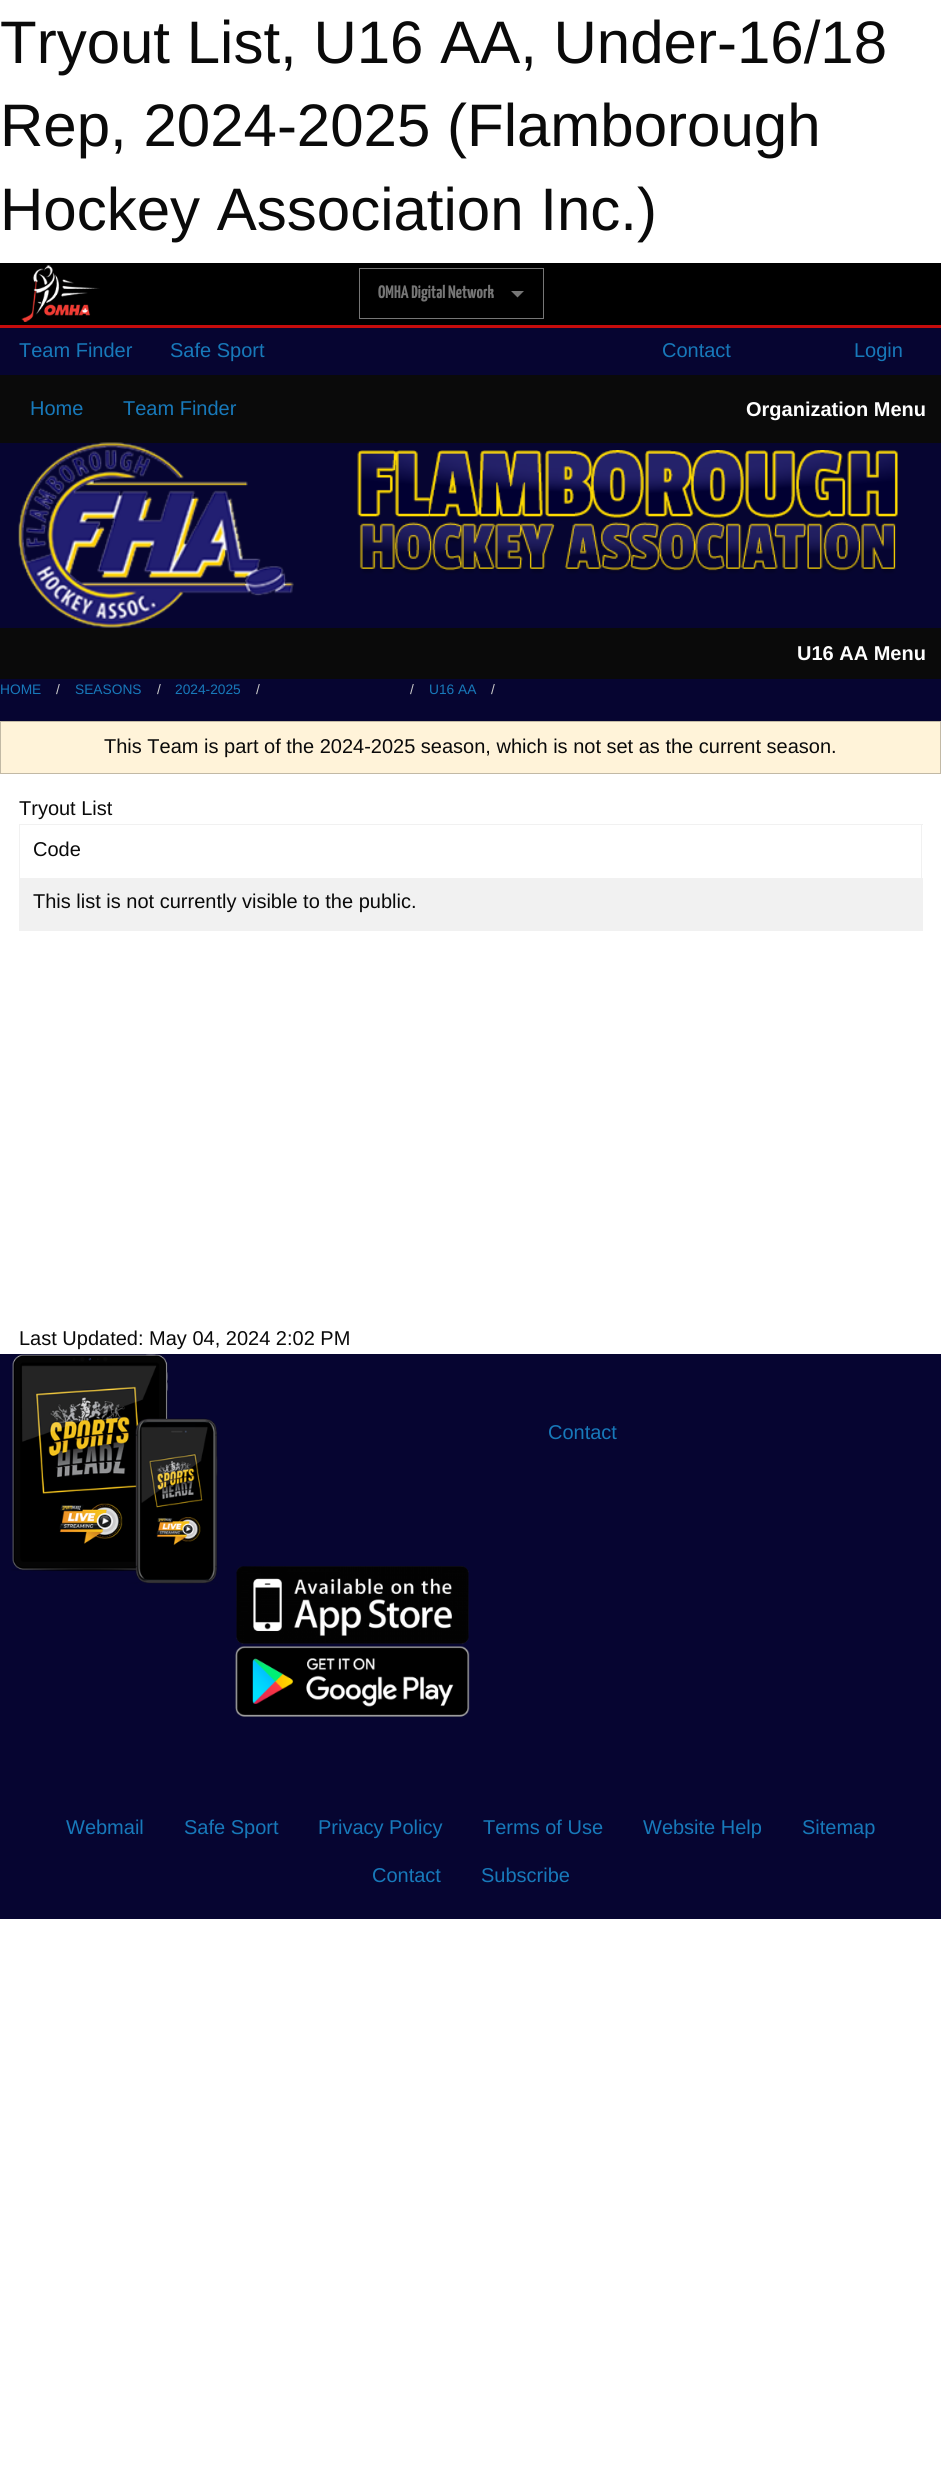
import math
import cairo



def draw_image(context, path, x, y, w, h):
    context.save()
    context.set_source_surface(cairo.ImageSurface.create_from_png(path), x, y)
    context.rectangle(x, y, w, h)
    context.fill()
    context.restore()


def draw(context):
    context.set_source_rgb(1, 1, 1)
    context.paint()
    context.set_source_rgb(0, 0, 0)
    context.rectangle(0, 263, 941, 62)
    context.fill()
    context.set_source_rgb(198 / 255, 12 / 255, 12 / 255)
    context.rectangle(0, 325, 941, 3)
    context.fill()
    draw_image(context, "images/1.png", 21, 265, 79, 57)
    context.rectangle(359.5, 268.5, 184, 50)
    context.set_source_rgb(118 / 255, 118 / 255, 118 / 255)
    context.set_line_width(1)
    context.stroke()
    context.new_path()
    context.move_to(511, 291)
    context.line_to(524, 291)
    context.line_to(517.5, 297.5)
    context.close_path()
    context.fill()
    context.set_source_rgb(6 / 255, 5 / 255, 49 / 255)
    context.rectangle(0, 328, 941, 1591)
    context.fill()
    context.set_source_rgb(10 / 255, 10 / 255, 10 / 255)
    context.rectangle(0, 375, 941, 68)
    context.fill()
    draw_image(context, "images/2.png", 18, 442, 276, 186)
    draw_image(context, "images/3.png", 357, 450, 541, 124)
    context.rectangle(0, 628, 941, 51)
    context.fill()
    context.set_source_rgb(1, 1, 1)
    context.rectangle(0, 774, 941, 580)
    context.fill()
    context.set_source_rgb(1, 243 / 255, 217 / 255)
    context.rectangle(0.5, 721.5, 940, 52)
    context.fill_preserve()
    context.set_source_rgb(194 / 255, 185 / 255, 165 / 255)
    context.stroke()
    context.set_source_rgb(241 / 255, 241 / 255, 241 / 255)
    context.rectangle(19, 824, 904, 1)
    context.fill()
    context.rectangle(20, 878, 903, 52)
    context.fill()
    context.rectangle(921, 824, 1, 107)
    context.fill()
    context.rectangle(19, 930, 904, 1)
    context.fill()
    context.rectangle(19, 824, 1, 107)
    context.fill()
    draw_image(context, "images/4.png", 11, 1354, 207, 230)
    draw_image(context, "images/5.png", 236, 1566, 233, 79)
    draw_image(context, "images/6.png", 235, 1646, 235, 71)
    context.select_font_face("Liberation Sans")
    context.set_font_size(60)
    context.set_source_rgb(10 / 255, 10 / 255, 10 / 255)
    context.move_to(0, 63)
    context.show_text("Tryout List, U16 AA, Under-16/18")
    context.move_to(0, 146)
    context.show_text("Rep, 2024-2025 (Flamborough")
    context.move_to(0, 230)
    context.show_text("Hockey Association Inc.)")
    context.select_font_face("Yanone Kaffeesatz ExtraLight")
    context.set_font_size(18)
    context.set_source_rgb(118 / 255, 118 / 255, 118 / 255)
    context.move_to(378, 298)
    context.show_text("OMHA Digital Network")
    context.select_font_face("Liberation Sans")
    context.set_font_size(20)
    context.set_source_rgb(23 / 255, 121 / 255, 186 / 255)
    context.move_to(19, 357)
    context.show_text("Team Finder")
    context.move_to(170, 357)
    context.show_text("Safe Sport")
    context.move_to(662, 357)
    context.show_text("Contact")
    context.move_to(854, 357)
    context.show_text("Login")
    context.move_to(30, 415)
    context.show_text("Home")
    context.move_to(123, 415)
    context.show_text("Team Finder")
    context.select_font_face("Liberation Sans", cairo.FontSlant.NORMAL, cairo.FontWeight.BOLD)
    context.set_source_rgb(254 / 255, 254 / 255, 254 / 255)
    context.move_to(746, 416)
    context.show_text("Organization Menu")
    context.move_to(797, 660)
    context.show_text("U16 AA Menu")
    context.select_font_face("Liberation Sans")
    context.set_font_size(13.75)
    context.set_source_rgb(23 / 255, 121 / 255, 186 / 255)
    context.move_to(0, 694)
    context.show_text("HOME")
    context.set_source_rgb(202 / 255, 202 / 255, 202 / 255)
    context.move_to(56, 694)
    context.show_text("/")
    context.set_source_rgb(23 / 255, 121 / 255, 186 / 255)
    context.move_to(75, 694)
    context.show_text("SEASONS")
    context.set_source_rgb(202 / 255, 202 / 255, 202 / 255)
    context.move_to(157, 694)
    context.show_text("/")
    context.set_source_rgb(23 / 255, 121 / 255, 186 / 255)
    context.move_to(175, 694)
    context.show_text("2024-2025")
    context.set_source_rgb(202 / 255, 202 / 255, 202 / 255)
    context.move_to(256, 694)
    context.show_text("/")
    context.move_to(410, 694)
    context.show_text("/")
    context.set_source_rgb(23 / 255, 121 / 255, 186 / 255)
    context.move_to(429, 694)
    context.show_text("U16 AA")
    context.set_source_rgb(202 / 255, 202 / 255, 202 / 255)
    context.move_to(491, 694)
    context.show_text("/")
    context.set_font_size(20)
    context.set_source_rgb(10 / 255, 10 / 255, 10 / 255)
    context.move_to(104, 753)
    context.show_text("This Team is part of the 2024-2025 season, which is not set as the current season.")
    context.move_to(19, 815)
    context.show_text("Tryout List")
    context.move_to(33, 856)
    context.show_text("Code")
    context.move_to(33, 908)
    context.show_text("This list is not currently visible to the public.")
    context.move_to(19, 1345)
    context.show_text("Last Updated: May 04, 2024 2:02 PM")
    context.set_source_rgb(23 / 255, 121 / 255, 186 / 255)
    context.move_to(548, 1439)
    context.show_text("Contact")
    context.move_to(66, 1834)
    context.show_text("Webmail")
    context.move_to(184, 1834)
    context.show_text("Safe Sport")
    context.move_to(318, 1834)
    context.show_text("Privacy Policy")
    context.move_to(483, 1834)
    context.show_text("Terms of Use")
    context.move_to(643, 1834)
    context.show_text("Website Help")
    context.move_to(802, 1834)
    context.show_text("Sitemap")
    context.move_to(372, 1882)
    context.show_text("Contact")
    context.move_to(481, 1882)
    context.show_text("Subscribe")


surface = cairo.ImageSurface(cairo.Format.RGB24, 941, 2490)
context = cairo.Context(surface)
options = cairo.FontOptions()
options.set_hint_metrics(cairo.HintMetrics.OFF)
options.set_hint_style(cairo.HintStyle.NONE)
context.set_font_options(options)
context.set_miter_limit(4)
draw(context)
surface.write_to_png("out.png")
